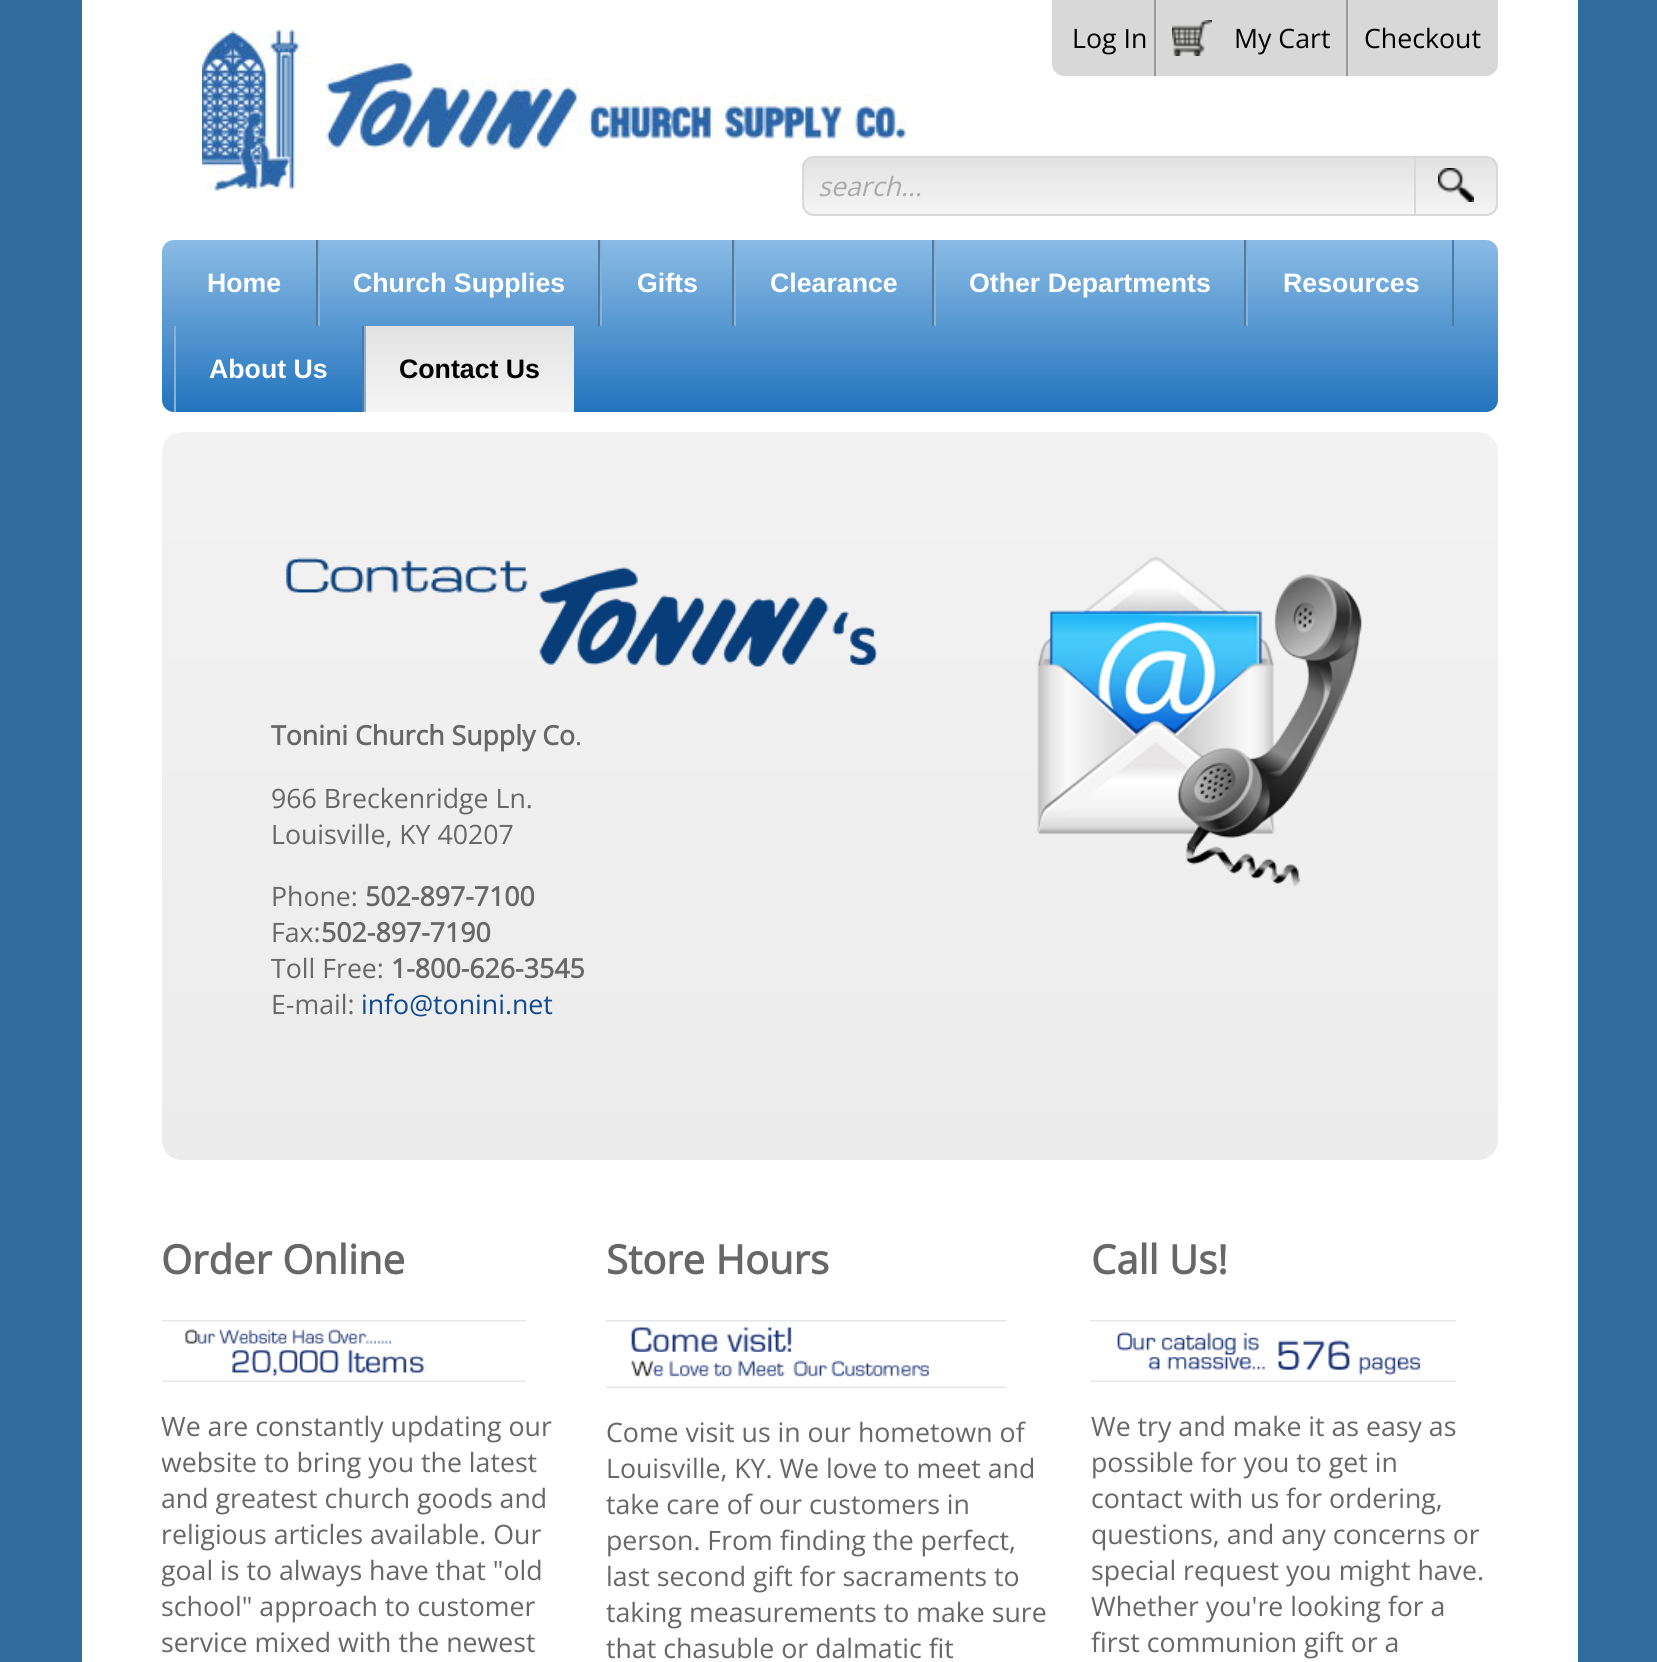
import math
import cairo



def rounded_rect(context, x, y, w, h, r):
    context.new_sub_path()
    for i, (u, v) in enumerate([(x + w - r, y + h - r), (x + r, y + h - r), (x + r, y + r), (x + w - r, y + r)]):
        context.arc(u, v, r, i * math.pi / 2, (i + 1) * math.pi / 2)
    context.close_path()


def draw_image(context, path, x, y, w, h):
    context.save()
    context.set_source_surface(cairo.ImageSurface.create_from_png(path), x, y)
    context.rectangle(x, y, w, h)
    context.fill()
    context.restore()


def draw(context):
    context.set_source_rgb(48 / 255, 108 / 255, 158 / 255)
    context.paint()
    context.set_source_rgb(1, 1, 1)
    context.rectangle(82, 0, 1496, 1662)
    context.fill()
    context.set_source_rgb(216 / 255, 216 / 255, 216 / 255)
    context.rectangle(1170, 0, 176, 76)
    context.fill()
    context.new_path()
    context.move_to(1052, 0)
    context.line_to(1170, 0)
    context.line_to(1170, 76)
    context.line_to(1064, 76)
    context.curve_to(1057.5, 76, 1052, 70.5, 1052, 64)
    context.close_path()
    context.fill()
    context.set_source_rgb(153 / 255, 153 / 255, 153 / 255)
    context.rectangle(1154, 0, 2, 76)
    context.fill()
    draw_image(context, "images/1.png", 1172, 20, 40, 36)
    context.set_source_rgb(216 / 255, 216 / 255, 216 / 255)
    context.new_path()
    context.move_to(1346, 0)
    context.line_to(1498, 0)
    context.line_to(1498, 64)
    context.curve_to(1498, 70.5, 1492.5, 76, 1486, 76)
    context.line_to(1346, 76)
    context.close_path()
    context.fill()
    context.set_source_rgb(153 / 255, 153 / 255, 153 / 255)
    context.rectangle(1346, 0, 2, 76)
    context.fill()
    draw_image(context, "images/2.png", 162, 432, 1336, 728)
    draw_image(context, "images/3.png", 285, 557, 593, 110)
    draw_image(context, "images/4.png", 1037, 556, 325, 331)
    draw_image(context, "images/5.png", 162, 1320, 364, 62)
    draw_image(context, "images/6.png", 606, 1320, 400, 68)
    draw_image(context, "images/7.png", 1090, 1320, 366, 62)
    draw_image(context, "images/9.png", 202, 29, 704, 162)
    context.save()
    rounded_rect(context, 802, 156, 696, 60, 12)
    context.clip()
    gradient = cairo.LinearGradient(1150, 158, 1150, 214)
    gradient.add_color_stop_rgba(0, 226 / 255, 226 / 255, 226 / 255, 1)
    gradient.add_color_stop_rgba(1, 245 / 255, 245 / 255, 245 / 255, 1)
    context.set_source(gradient)
    context.rectangle(802, 158, 696, 56)
    context.fill()
    context.restore()
    rounded_rect(context, 803, 157, 694, 58, 11)
    context.set_source_rgb(216 / 255, 216 / 255, 216 / 255)
    context.stroke()
    context.rectangle(1414, 158, 2, 56)
    context.fill()
    draw_image(context, "images/8.png", 1438, 168, 36, 34)
    gradient = cairo.LinearGradient(830, 240, 830, 412)
    gradient.add_color_stop_rgba(0, 139 / 255, 187 / 255, 228 / 255, 1)
    gradient.add_color_stop_rgba(1, 34 / 255, 116 / 255, 190 / 255, 1)
    context.set_source(gradient)
    rounded_rect(context, 162, 240, 1336, 172, 12)
    context.fill()
    context.set_source_rgb(73 / 255, 125 / 255, 173 / 255)
    context.rectangle(316, 240, 2, 86)
    context.fill()
    context.rectangle(598, 240, 2, 86)
    context.fill()
    context.set_source_rgb(141 / 255, 176 / 255, 206 / 255)
    context.rectangle(318, 240, 2, 86)
    context.fill()
    context.set_source_rgb(73 / 255, 125 / 255, 173 / 255)
    context.rectangle(732, 240, 2, 86)
    context.fill()
    context.set_source_rgb(141 / 255, 176 / 255, 206 / 255)
    context.rectangle(600, 240, 2, 86)
    context.fill()
    context.set_source_rgb(73 / 255, 125 / 255, 173 / 255)
    context.rectangle(932, 240, 2, 86)
    context.fill()
    context.set_source_rgb(141 / 255, 176 / 255, 206 / 255)
    context.rectangle(734, 240, 2, 86)
    context.fill()
    context.set_source_rgb(73 / 255, 125 / 255, 173 / 255)
    context.rectangle(1244, 240, 2, 86)
    context.fill()
    context.set_source_rgb(141 / 255, 176 / 255, 206 / 255)
    context.rectangle(934, 240, 2, 86)
    context.fill()
    context.set_source_rgb(73 / 255, 125 / 255, 173 / 255)
    context.rectangle(1452, 240, 2, 86)
    context.fill()
    context.set_source_rgb(141 / 255, 176 / 255, 206 / 255)
    context.rectangle(1246, 240, 2, 86)
    context.fill()
    context.set_source_rgb(73 / 255, 125 / 255, 173 / 255)
    context.rectangle(362, 326, 2, 86)
    context.fill()
    context.set_source_rgb(141 / 255, 176 / 255, 206 / 255)
    context.rectangle(174, 326, 2, 86)
    context.fill()
    context.rectangle(364, 326, 2, 86)
    context.fill()
    gradient = cairo.LinearGradient(470, 326, 470, 412)
    gradient.add_color_stop_rgba(0, 226 / 255, 226 / 255, 226 / 255, 1)
    gradient.add_color_stop_rgba(1, 245 / 255, 245 / 255, 245 / 255, 1)
    context.set_source(gradient)
    context.rectangle(366, 326, 208, 86)
    context.fill()
    context.select_font_face("Open Sans")
    context.set_font_size(26.7)
    context.set_source_rgb(0, 0, 0)
    context.move_to(1234, 48)
    context.show_text("My Cart")
    context.move_to(1364, 48)
    context.show_text("Checkout")
    context.select_font_face("Open Sans", cairo.FontSlant.NORMAL, cairo.FontWeight.BOLD)
    context.set_source_rgb(103 / 255, 103 / 255, 103 / 255)
    context.move_to(271, 745)
    context.show_text("Tonini Church Supply Co")
    context.select_font_face("Open Sans")
    context.move_to(575, 745)
    context.show_text(".")
    context.move_to(271, 808)
    context.show_text("966 Breckenridge Ln.")
    context.move_to(271, 844)
    context.show_text("Louisville, KY 40207")
    context.move_to(271, 906)
    context.show_text("Phone:")
    context.select_font_face("Open Sans", cairo.FontSlant.NORMAL, cairo.FontWeight.BOLD)
    context.move_to(365, 906)
    context.show_text("502-897-7100")
    context.select_font_face("Open Sans")
    context.move_to(271, 942)
    context.show_text("Fax:")
    context.select_font_face("Open Sans", cairo.FontSlant.NORMAL, cairo.FontWeight.BOLD)
    context.move_to(321, 942)
    context.show_text("502-897-7190")
    context.select_font_face("Open Sans")
    context.move_to(271, 978)
    context.show_text("Toll Free:")
    context.select_font_face("Open Sans", cairo.FontSlant.NORMAL, cairo.FontWeight.BOLD)
    context.move_to(391, 978)
    context.show_text("1-800-626-3545")
    context.select_font_face("Open Sans")
    context.move_to(271, 1014)
    context.show_text("E-mail:")
    context.set_source_rgb(16 / 255, 73 / 255, 143 / 255)
    context.move_to(361, 1014)
    context.show_text("info@tonini.net")
    context.select_font_face("Open Sans", cairo.FontSlant.NORMAL, cairo.FontWeight.BOLD)
    context.set_font_size(40)
    context.set_source_rgb(103 / 255, 103 / 255, 103 / 255)
    context.move_to(161, 1274)
    context.show_text("Order Online")
    context.select_font_face("Open Sans")
    context.set_font_size(26.7)
    context.move_to(161, 1436)
    context.show_text("We are constantly updating our")
    context.save()
    context.rectangle(162, 412, 1336, 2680)
    context.clip()
    context.move_to(161, 1472)
    context.show_text("website to bring you the latest")
    context.restore()
    context.move_to(161, 1508)
    context.show_text("and greatest church goods and")
    context.move_to(161, 1544)
    context.show_text("religious articles available. Our")
    context.save()
    context.rectangle(162, 412, 1336, 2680)
    context.clip()
    context.move_to(161, 1580)
    context.show_text("goal is to always have that \"old")
    context.restore()
    context.move_to(161, 1616)
    context.show_text("school\" approach to customer")
    context.move_to(161, 1652)
    context.show_text("service mixed with the newest")
    context.select_font_face("Open Sans", cairo.FontSlant.NORMAL, cairo.FontWeight.BOLD)
    context.set_font_size(40)
    context.move_to(606, 1274)
    context.show_text("Store Hours")
    context.select_font_face("Open Sans")
    context.set_font_size(26.7)
    context.move_to(606, 1442)
    context.show_text("Come visit us in our hometown of")
    context.move_to(606, 1478)
    context.show_text("Louisville, KY. We love to meet and")
    context.move_to(606, 1514)
    context.show_text("take care of our customers in")
    context.move_to(606, 1550)
    context.show_text("person. From finding the perfect,")
    context.move_to(606, 1586)
    context.show_text("last second gift for sacraments to")
    context.move_to(606, 1622)
    context.show_text("taking measurements to make sure")
    context.move_to(606, 1658)
    context.show_text("that chasuble or dalmatic fit")
    context.select_font_face("Open Sans", cairo.FontSlant.NORMAL, cairo.FontWeight.BOLD)
    context.set_font_size(40)
    context.move_to(1091, 1274)
    context.show_text("Call Us!")
    context.select_font_face("Open Sans")
    context.set_font_size(26.7)
    context.move_to(1091, 1436)
    context.show_text("We try and make it as easy as")
    context.move_to(1091, 1472)
    context.show_text("possible for you to get in")
    context.move_to(1091, 1508)
    context.show_text("contact with us for ordering,")
    context.move_to(1091, 1544)
    context.show_text("questions, and any concerns or")
    context.move_to(1091, 1580)
    context.show_text("special request you might have.")
    context.move_to(1091, 1616)
    context.show_text("Whether you're looking for a")
    context.move_to(1091, 1652)
    context.show_text("first communion gift or a")
    context.select_font_face("Open Sans", cairo.FontSlant.ITALIC)
    context.set_source_rgb(170 / 255, 170 / 255, 170 / 255)
    context.move_to(818, 196)
    context.show_text("search...")
    context.select_font_face("Open Sans")
    context.set_source_rgb(0, 0, 0)
    context.move_to(1072, 48)
    context.show_text("Log In")
    context.select_font_face("Liberation Sans", cairo.FontSlant.NORMAL, cairo.FontWeight.BOLD)
    context.set_source_rgb(1, 1, 1)
    context.move_to(207, 292)
    context.show_text("Home")
    context.move_to(353, 292)
    context.show_text("Church Supplies")
    context.move_to(637, 292)
    context.show_text("Gifts")
    context.move_to(770, 292)
    context.show_text("Clearance")
    context.move_to(969, 292)
    context.show_text("Other Departments")
    context.move_to(1283, 292)
    context.show_text("Resources")
    context.move_to(209, 378)
    context.show_text("About Us")
    context.set_source_rgb(0, 0, 0)
    context.move_to(399, 378)
    context.show_text("Contact Us")


surface = cairo.ImageSurface(cairo.Format.RGB24, 1657, 1662)
context = cairo.Context(surface)
options = cairo.FontOptions()
options.set_hint_metrics(cairo.HintMetrics.OFF)
options.set_hint_style(cairo.HintStyle.NONE)
context.set_font_options(options)
context.set_miter_limit(4)
draw(context)
surface.write_to_png("out.png")
